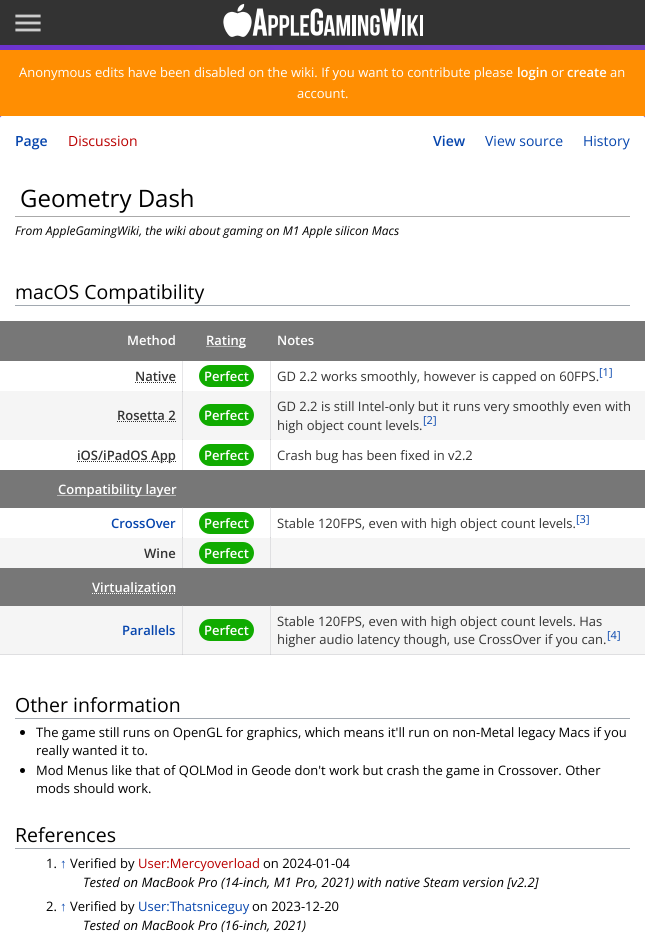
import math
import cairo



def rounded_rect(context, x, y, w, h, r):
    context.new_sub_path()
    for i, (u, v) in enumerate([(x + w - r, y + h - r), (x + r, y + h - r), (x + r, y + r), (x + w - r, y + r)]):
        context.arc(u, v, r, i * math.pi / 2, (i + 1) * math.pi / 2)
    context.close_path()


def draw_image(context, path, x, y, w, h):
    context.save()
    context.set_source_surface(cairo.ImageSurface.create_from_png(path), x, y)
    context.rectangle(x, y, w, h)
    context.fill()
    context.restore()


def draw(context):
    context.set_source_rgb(1, 1, 1)
    context.paint()
    gradient = cairo.LinearGradient(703, 52, -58, 898)
    gradient.add_color_stop_rgba(0, 118 / 255, 70 / 255, 193 / 255, 1)
    gradient.add_color_stop_rgba(0.5, 107 / 255, 47 / 255, 209 / 255, 1)
    gradient.add_color_stop_rgba(1, 164 / 255, 47 / 255, 201 / 255, 1)
    context.set_source(gradient)
    context.rectangle(0, 45, 645, 73)
    context.fill()
    context.set_source_rgb(51 / 255, 51 / 255, 51 / 255)
    context.rectangle(0, 0, 645, 45)
    context.fill()
    draw_image(context, "images/1.png", 15, 14, 26, 18)
    draw_image(context, "images/2.png", 223, 3, 200, 34)
    context.set_source_rgb(1, 142 / 255, 2 / 255)
    context.rectangle(0, 50, 645, 66)
    context.fill()
    context.set_source_rgb(1, 1, 1)
    rounded_rect(context, 0, 116, 645, 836, 2)
    context.fill()
    context.set_source_rgb(230 / 255, 230 / 255, 232 / 255)
    context.rectangle(182, 360, 1, 32)
    context.fill()
    context.rectangle(270, 360, 1, 32)
    context.fill()
    context.rectangle(182, 439, 1, 31)
    context.fill()
    context.rectangle(270, 439, 1, 31)
    context.fill()
    context.rectangle(182, 507, 1, 31)
    context.fill()
    context.rectangle(270, 507, 1, 31)
    context.fill()
    context.set_source_rgb(212 / 255, 212 / 255, 216 / 255)
    context.rectangle(182, 537, 1, 1)
    context.fill()
    context.rectangle(270, 537, 1, 1)
    context.fill()
    context.set_source_rgb(170 / 255, 170 / 255, 170 / 255)
    context.rectangle(15, 216, 615, 1)
    context.fill()
    context.set_source_rgb(162 / 255, 169 / 255, 177 / 255)
    context.rectangle(15, 305, 615, 1)
    context.fill()
    context.set_source_rgb(245 / 255, 245 / 255, 245 / 255)
    context.rectangle(0, 606, 645, 48)
    context.fill()
    context.set_source_rgb(223 / 255, 223 / 255, 225 / 255)
    context.rectangle(182, 606, 1, 49)
    context.fill()
    context.rectangle(270, 606, 1, 49)
    context.fill()
    context.rectangle(0, 654, 645, 1)
    context.fill()
    context.set_source_rgb(207 / 255, 207 / 255, 211 / 255)
    context.rectangle(182, 654, 1, 1)
    context.fill()
    context.rectangle(270, 654, 1, 1)
    context.fill()
    context.set_source_rgb(119 / 255, 119 / 255, 119 / 255)
    context.rectangle(0, 321, 645, 38)
    context.fill()
    context.new_path()
    context.move_to(206.5, 346.5)
    context.line_to(246.5, 346.5)
    context.set_source_rgb(1, 1, 1)
    context.set_line_width(1)
    context.set_dash([1, 1])
    context.stroke()
    context.set_source_rgb(119 / 255, 119 / 255, 119 / 255)
    context.rectangle(0, 359, 645, 2)
    context.fill()
    context.new_path()
    context.move_to(135, 382.5)
    context.line_to(176, 382.5)
    context.set_source_rgb(51 / 255, 51 / 255, 51 / 255)
    context.stroke()
    context.set_source_rgb(16 / 255, 171 / 255, 0)
    rounded_rect(context, 199, 365, 55, 22, 11)
    context.fill()
    context.set_source_rgb(245 / 255, 245 / 255, 245 / 255)
    context.rectangle(0, 391, 645, 49)
    context.fill()
    context.set_source_rgb(223 / 255, 223 / 255, 225 / 255)
    context.rectangle(182, 391, 1, 49)
    context.fill()
    context.set_source_rgb(207 / 255, 207 / 255, 211 / 255)
    context.rectangle(182, 391, 1, 1)
    context.fill()
    context.set_source_rgb(223 / 255, 223 / 255, 225 / 255)
    context.rectangle(270, 391, 1, 49)
    context.fill()
    context.set_source_rgb(207 / 255, 207 / 255, 211 / 255)
    context.rectangle(270, 391, 1, 1)
    context.fill()
    context.rectangle(182, 439, 1, 1)
    context.fill()
    context.rectangle(270, 439, 1, 1)
    context.fill()
    context.new_path()
    context.move_to(117, 421.5)
    context.line_to(176, 421.5)
    context.set_source_rgb(51 / 255, 51 / 255, 51 / 255)
    context.stroke()
    context.set_source_rgb(16 / 255, 171 / 255, 0)
    rounded_rect(context, 199, 404, 55, 22, 11)
    context.fill()
    context.new_path()
    context.move_to(77, 461.5)
    context.line_to(176, 461.5)
    context.set_source_rgb(51 / 255, 51 / 255, 51 / 255)
    context.stroke()
    context.set_source_rgb(16 / 255, 171 / 255, 0)
    rounded_rect(context, 199, 444, 55, 22, 11)
    context.fill()
    context.set_source_rgb(119 / 255, 119 / 255, 119 / 255)
    context.rectangle(0, 470, 645, 38)
    context.fill()
    context.new_path()
    context.move_to(57.5, 495.5)
    context.line_to(176, 495.5)
    context.set_source_rgb(1, 1, 1)
    context.stroke()
    context.set_source_rgb(134 / 255, 134 / 255, 137 / 255)
    context.rectangle(182, 507, 1, 1)
    context.fill()
    context.rectangle(270, 507, 1, 1)
    context.fill()
    context.set_source_rgb(16 / 255, 171 / 255, 0)
    rounded_rect(context, 199, 512, 55, 22, 11)
    context.fill()
    context.set_source_rgb(245 / 255, 245 / 255, 245 / 255)
    context.rectangle(0, 538, 645, 30)
    context.fill()
    context.set_source_rgb(223 / 255, 223 / 255, 225 / 255)
    context.rectangle(182, 538, 1, 30)
    context.fill()
    context.rectangle(270, 538, 1, 30)
    context.fill()
    context.set_source_rgb(16 / 255, 171 / 255, 0)
    rounded_rect(context, 199, 542, 55, 22, 11)
    context.fill()
    context.set_source_rgb(119 / 255, 119 / 255, 119 / 255)
    context.rectangle(0, 568, 645, 38)
    context.fill()
    context.new_path()
    context.move_to(92, 593.5)
    context.line_to(176, 593.5)
    context.set_source_rgb(1, 1, 1)
    context.stroke()
    context.set_source_rgb(134 / 255, 134 / 255, 137 / 255)
    context.rectangle(182, 605, 1, 1)
    context.fill()
    context.rectangle(270, 605, 1, 1)
    context.fill()
    context.set_source_rgb(16 / 255, 171 / 255, 0)
    rounded_rect(context, 199, 619, 55, 22, 11)
    context.fill()
    context.set_source_rgb(162 / 255, 169 / 255, 177 / 255)
    context.rectangle(15, 718, 615, 1)
    context.fill()
    context.set_source_rgb(0, 0, 0)
    context.arc(22.5, 732.5, 2.5, 0, 2 * math.pi)
    context.fill()
    context.arc(22.5, 770.5, 2.5, 0, 2 * math.pi)
    context.fill()
    context.set_source_rgb(162 / 255, 169 / 255, 177 / 255)
    context.rectangle(15, 848, 615, 1)
    context.fill()
    context.select_font_face("Open Sans")
    context.set_font_size(13)
    context.set_source_rgb(1, 1, 1)
    context.move_to(19, 77)
    context.show_text("Anonymous edits have been disabled on the wiki. If you want to contribute please")
    context.select_font_face("Open Sans SemiBold")
    context.move_to(517, 77)
    context.show_text("login")
    context.select_font_face("Open Sans")
    context.move_to(551, 77)
    context.show_text("or")
    context.select_font_face("Open Sans SemiBold")
    context.move_to(567, 77)
    context.show_text("create")
    context.select_font_face("Open Sans")
    context.move_to(610, 77)
    context.show_text("an")
    context.move_to(297, 98)
    context.show_text("account.")
    context.select_font_face("Open Sans SemiBold")
    context.set_font_size(14)
    context.set_source_rgb(6 / 255, 69 / 255, 173 / 255)
    context.move_to(15, 146)
    context.show_text("Page")
    context.select_font_face("Open Sans")
    context.set_source_rgb(186 / 255, 0, 0)
    context.move_to(68, 146)
    context.show_text("Discussion")
    context.select_font_face("Open Sans SemiBold")
    context.set_source_rgb(6 / 255, 69 / 255, 173 / 255)
    context.move_to(433, 146)
    context.show_text("View")
    context.select_font_face("Open Sans")
    context.move_to(485, 146)
    context.show_text("View source")
    context.move_to(583, 146)
    context.show_text("History")
    context.set_font_size(24)
    context.set_source_rgb(0, 0, 0)
    context.move_to(20, 207)
    context.show_text("Geometry Dash")
    context.select_font_face("Open Sans", cairo.FontSlant.ITALIC)
    context.set_font_size(12)
    context.move_to(15, 235)
    context.show_text("From AppleGamingWiki, the wiki about gaming on M1 Apple silicon Macs")
    context.select_font_face("Open Sans")
    context.set_font_size(19.5)
    context.move_to(15, 299)
    context.show_text("macOS Compatibility")
    context.select_font_face("Open Sans SemiBold")
    context.set_font_size(13)
    context.set_source_rgb(1, 1, 1)
    context.move_to(127, 345)
    context.show_text("Method")
    context.move_to(206, 345)
    context.show_text("Rating")
    context.move_to(277, 345)
    context.show_text("Notes")
    context.set_source_rgb(51 / 255, 51 / 255, 51 / 255)
    context.move_to(135, 381)
    context.show_text("Native")
    context.set_source_rgb(1, 1, 1)
    context.move_to(204, 381)
    context.show_text("Perfect")
    context.select_font_face("Open Sans")
    context.set_source_rgb(51 / 255, 51 / 255, 51 / 255)
    context.move_to(277, 381)
    context.show_text("GD 2.2 works smoothly, however is capped on 60FPS.")
    context.set_font_size(11)
    context.set_source_rgb(6 / 255, 69 / 255, 173 / 255)
    context.move_to(599, 376)
    context.show_text("[1]")
    context.select_font_face("Open Sans SemiBold")
    context.set_font_size(13)
    context.set_source_rgb(51 / 255, 51 / 255, 51 / 255)
    context.move_to(117, 420)
    context.show_text("Rosetta 2")
    context.set_source_rgb(1, 1, 1)
    context.move_to(204, 420)
    context.show_text("Perfect")
    context.select_font_face("Open Sans")
    context.set_source_rgb(51 / 255, 51 / 255, 51 / 255)
    context.move_to(277, 411)
    context.show_text("GD 2.2 is still Intel-only but it runs very smoothly even with")
    context.move_to(277, 430)
    context.show_text("high object count levels.")
    context.set_font_size(11)
    context.set_source_rgb(6 / 255, 69 / 255, 173 / 255)
    context.move_to(423, 424)
    context.show_text("[2]")
    context.select_font_face("Open Sans SemiBold")
    context.set_font_size(13)
    context.set_source_rgb(51 / 255, 51 / 255, 51 / 255)
    context.move_to(77, 460)
    context.show_text("iOS/iPadOS App")
    context.set_source_rgb(1, 1, 1)
    context.move_to(204, 460)
    context.show_text("Perfect")
    context.select_font_face("Open Sans")
    context.set_source_rgb(51 / 255, 51 / 255, 51 / 255)
    context.move_to(277, 460)
    context.show_text("Crash bug has been fixed in v2.2")
    context.select_font_face("Open Sans SemiBold")
    context.set_source_rgb(1, 1, 1)
    context.move_to(58, 494)
    context.show_text("Compatibility layer")
    context.set_source_rgb(6 / 255, 69 / 255, 173 / 255)
    context.move_to(111, 528)
    context.show_text("CrossOver")
    context.set_source_rgb(1, 1, 1)
    context.move_to(204, 528)
    context.show_text("Perfect")
    context.select_font_face("Open Sans")
    context.set_source_rgb(51 / 255, 51 / 255, 51 / 255)
    context.move_to(277, 528)
    context.show_text("Stable 120FPS, even with high object count levels.")
    context.set_font_size(11)
    context.set_source_rgb(6 / 255, 69 / 255, 173 / 255)
    context.move_to(576, 523)
    context.show_text("[3]")
    context.select_font_face("Open Sans SemiBold")
    context.set_font_size(13)
    context.set_source_rgb(51 / 255, 51 / 255, 51 / 255)
    context.move_to(144, 558)
    context.show_text("Wine")
    context.set_source_rgb(1, 1, 1)
    context.move_to(204, 558)
    context.show_text("Perfect")
    context.move_to(92, 592)
    context.show_text("Virtualization")
    context.set_source_rgb(6 / 255, 69 / 255, 173 / 255)
    context.move_to(122, 635)
    context.show_text("Parallels")
    context.set_source_rgb(1, 1, 1)
    context.move_to(204, 635)
    context.show_text("Perfect")
    context.select_font_face("Open Sans")
    context.set_source_rgb(51 / 255, 51 / 255, 51 / 255)
    context.move_to(277, 626)
    context.show_text("Stable 120FPS, even with high object count levels. Has")
    context.move_to(277, 644)
    context.show_text("higher audio latency though, use CrossOver if you can.")
    context.set_font_size(11)
    context.set_source_rgb(6 / 255, 69 / 255, 173 / 255)
    context.move_to(607, 639)
    context.show_text("[4]")
    context.set_font_size(19.5)
    context.set_source_rgb(0, 0, 0)
    context.move_to(15, 712)
    context.show_text("Other information")
    context.set_font_size(13)
    context.move_to(36, 737)
    context.show_text("The game still runs on OpenGL for graphics, which means it'll run on non-Metal legacy Macs if you")
    context.move_to(36, 755)
    context.show_text("really wanted it to.")
    context.move_to(36, 775)
    context.show_text("Mod Menus like that of QOLMod in Geode don't work but crash the game in Crossover. Other")
    context.move_to(36, 793)
    context.show_text("mods should work.")
    context.set_font_size(19.5)
    context.move_to(15, 842)
    context.show_text("References")
    context.set_font_size(13)
    context.move_to(46, 868)
    context.show_text("1.")
    context.select_font_face("Liberation Sans")
    context.set_source_rgb(6 / 255, 69 / 255, 173 / 255)
    context.move_to(60, 868)
    context.show_text("↑")
    context.select_font_face("Open Sans")
    context.set_source_rgb(0, 0, 0)
    context.move_to(70, 868)
    context.show_text("Verified by")
    context.set_source_rgb(186 / 255, 0, 0)
    context.move_to(138, 868)
    context.show_text("User:Mercyoverload")
    context.set_source_rgb(0, 0, 0)
    context.move_to(263, 868)
    context.show_text("on 2024-01-04")
    context.select_font_face("Open Sans", cairo.FontSlant.ITALIC)
    context.move_to(83, 887)
    context.show_text("Tested on MacBook Pro (14-inch, M1 Pro, 2021) with native Steam version [v2.2]")
    context.select_font_face("Open Sans")
    context.move_to(46, 911)
    context.show_text("2.")
    context.select_font_face("Liberation Sans")
    context.set_source_rgb(6 / 255, 69 / 255, 173 / 255)
    context.move_to(60, 911)
    context.show_text("↑")
    context.select_font_face("Open Sans")
    context.set_source_rgb(0, 0, 0)
    context.move_to(70, 911)
    context.show_text("Verified by")
    context.set_source_rgb(6 / 255, 69 / 255, 173 / 255)
    context.move_to(138, 911)
    context.show_text("User:Thatsniceguy")
    context.set_source_rgb(0, 0, 0)
    context.move_to(252, 911)
    context.show_text("on 2023-12-20")
    context.select_font_face("Open Sans", cairo.FontSlant.ITALIC)
    context.move_to(83, 930)
    context.show_text("Tested on MacBook Pro (16-inch, 2021)")


surface = cairo.ImageSurface(cairo.Format.RGB24, 645, 950)
context = cairo.Context(surface)
options = cairo.FontOptions()
options.set_hint_metrics(cairo.HintMetrics.OFF)
options.set_hint_style(cairo.HintStyle.NONE)
context.set_font_options(options)
context.set_miter_limit(4)
draw(context)
surface.write_to_png("out.png")
